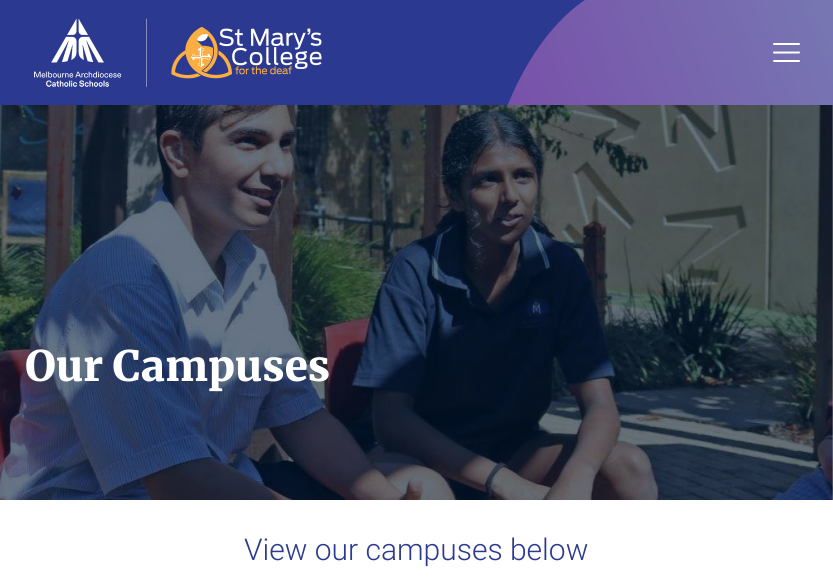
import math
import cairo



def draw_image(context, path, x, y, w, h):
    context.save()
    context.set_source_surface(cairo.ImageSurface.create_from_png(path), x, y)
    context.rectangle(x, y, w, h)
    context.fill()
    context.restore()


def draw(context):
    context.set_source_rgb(1, 1, 1)
    context.paint()
    context.set_source_rgb(43 / 255, 57 / 255, 144 / 255)
    context.rectangle(0, 0, 585, 105)
    context.fill()
    context.save()
    context.rectangle(502, 0, 331, 105)
    context.clip()
    gradient = cairo.LinearGradient(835, 1.2, 515, 122)
    gradient.add_color_stop_rgba(0, 119 / 255, 119 / 255, 179 / 255, 1)
    gradient.add_color_stop_rgba(1, 120 / 255, 81 / 255, 169 / 255, 1)
    context.set_source(gradient)
    context.new_path()
    context.move_to(585, 0)
    context.line_to(833, 0)
    context.line_to(833, 121)
    context.line_to(502, 121)
    context.curve_to(502, 121, 511, 89, 536, 51)
    context.curve_to(561, 14, 585, 0, 585, 0)
    context.close_path()
    context.fill()
    context.restore()
    draw_image(context, "images/1.png", 34, 18, 288, 69)
    context.new_path()
    context.move_to(774, 52.5)
    context.line_to(799, 52.5)
    context.move_to(774, 44)
    context.line_to(799, 44)
    context.move_to(774, 61)
    context.line_to(799, 61)
    context.set_source_rgb(1, 1, 1)
    context.set_line_cap(cairo.LineCap.ROUND)
    context.set_line_join(cairo.LineJoin.ROUND)
    context.stroke()
    draw_image(context, "images/2.png", 0, 105, 833, 395)
    context.select_font_face("Merriweather Black")
    context.set_font_size(42)
    context.move_to(25, 381)
    context.show_text("Our Campuses")
    context.select_font_face("Roboto Light")
    context.set_font_size(30)
    context.set_source_rgb(43 / 255, 57 / 255, 144 / 255)
    context.move_to(244, 560)
    context.show_text("View our campuses below")


surface = cairo.ImageSurface(cairo.Format.RGB24, 833, 588)
context = cairo.Context(surface)
options = cairo.FontOptions()
options.set_hint_metrics(cairo.HintMetrics.OFF)
options.set_hint_style(cairo.HintStyle.NONE)
context.set_font_options(options)
context.set_miter_limit(4)
draw(context)
surface.write_to_png("out.png")
